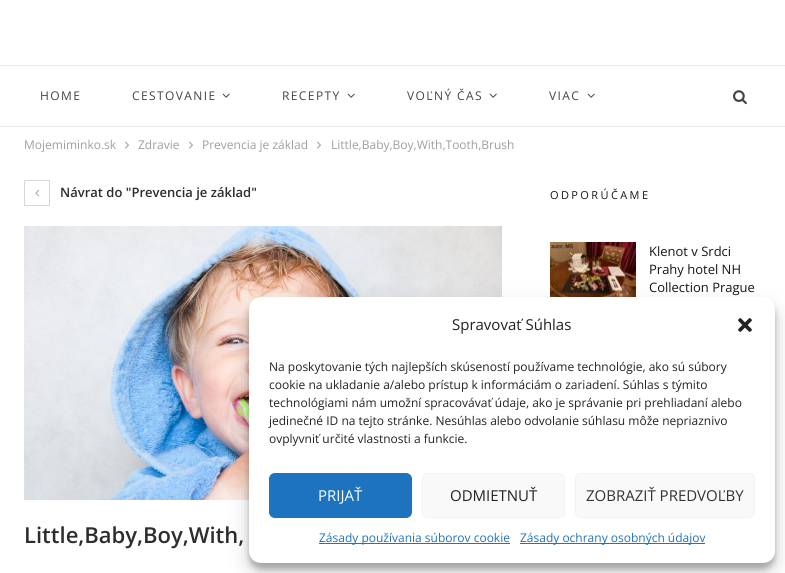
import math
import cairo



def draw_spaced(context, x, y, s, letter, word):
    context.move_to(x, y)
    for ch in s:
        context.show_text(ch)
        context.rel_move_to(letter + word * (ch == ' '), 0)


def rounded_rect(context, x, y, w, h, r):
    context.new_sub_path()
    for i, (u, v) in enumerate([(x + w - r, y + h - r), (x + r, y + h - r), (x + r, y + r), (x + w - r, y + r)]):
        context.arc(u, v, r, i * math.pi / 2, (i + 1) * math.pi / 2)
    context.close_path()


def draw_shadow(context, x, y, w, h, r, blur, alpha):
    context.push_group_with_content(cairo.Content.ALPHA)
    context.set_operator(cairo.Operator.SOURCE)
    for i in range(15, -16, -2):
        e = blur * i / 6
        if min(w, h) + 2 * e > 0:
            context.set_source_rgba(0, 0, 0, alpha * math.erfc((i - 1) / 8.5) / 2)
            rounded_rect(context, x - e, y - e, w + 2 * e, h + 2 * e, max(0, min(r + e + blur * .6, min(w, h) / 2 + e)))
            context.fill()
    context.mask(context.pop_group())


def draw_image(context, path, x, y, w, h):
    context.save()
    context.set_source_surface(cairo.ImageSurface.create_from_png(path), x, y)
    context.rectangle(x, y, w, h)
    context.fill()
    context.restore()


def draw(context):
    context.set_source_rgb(1, 1, 1)
    context.paint()
    context.set_source_rgb(233 / 255, 233 / 255, 233 / 255)
    context.rectangle(0, 65, 785, 1)
    context.fill()
    context.rectangle(0, 126, 785, 1)
    context.fill()
    draw_image(context, "images/1.png", 222, 93, 8, 5)
    draw_image(context, "images/1.png", 347, 93, 8, 5)
    draw_image(context, "images/1.png", 489, 93, 8, 5)
    draw_image(context, "images/1.png", 587, 93, 8, 5)
    draw_image(context, "images/2.png", 733, 90, 14, 15)
    draw_image(context, "images/3.png", 125, 141, 4, 8)
    draw_image(context, "images/3.png", 189, 141, 4, 8)
    draw_image(context, "images/3.png", 317, 141, 4, 8)
    context.rectangle(24.5, 180.5, 25, 25)
    context.set_source_rgb(216 / 255, 216 / 255, 216 / 255)
    context.set_line_width(1)
    context.stroke()
    draw_image(context, "images/4.png", 35, 189, 5, 8)
    draw_image(context, "images/5.png", 24, 226, 478, 274)
    draw_image(context, "images/6.png", 550, 242, 86, 55)
    context.set_source_rgb(0, 0, 0)
    draw_shadow(context, 249, 303, 526, 266, 12, 3, 0.23)
    draw_shadow(context, 249, 307, 526, 266, 12, 10, 0.19)
    context.set_source_rgb(1, 1, 1)
    rounded_rect(context, 249, 297, 526, 266, 12)
    context.fill()
    draw_image(context, "images/7.png", 738, 318, 14, 14)
    context.set_source_rgb(30 / 255, 115 / 255, 190 / 255)
    rounded_rect(context, 269.5, 473.5, 142, 44, 5.5)
    context.fill_preserve()
    context.stroke()
    context.set_source_rgb(249 / 255, 249 / 255, 249 / 255)
    rounded_rect(context, 422.5, 473.5, 142, 44, 5.5)
    context.fill_preserve()
    context.set_source_rgb(242 / 255, 242 / 255, 242 / 255)
    context.stroke()
    context.set_source_rgb(249 / 255, 249 / 255, 249 / 255)
    rounded_rect(context, 575.5, 473.5, 179, 44, 5.5)
    context.fill_preserve()
    context.set_source_rgb(242 / 255, 242 / 255, 242 / 255)
    context.stroke()
    context.set_source_rgb(30 / 255, 115 / 255, 190 / 255)
    context.rectangle(319, 543, 191, 1)
    context.fill()
    context.rectangle(520, 543, 185, 1)
    context.fill()
    context.select_font_face("Open Sans")
    context.set_font_size(12)
    context.set_source_rgb(68 / 255, 68 / 255, 68 / 255)
    draw_spaced(context, 40, 100, "HOME", 1.4, 0)
    draw_spaced(context, 132, 100, "CESTOVANIE", 1.4, 0)
    draw_spaced(context, 282, 100, "RECEPTY", 1.4, 0)
    draw_spaced(context, 407, 100, "VOĽNÝ ČAS", 1.4, 0)
    draw_spaced(context, 549, 100, "VIAC", 1.4, 0)
    context.set_source_rgb(158 / 255, 158 / 255, 158 / 255)
    context.move_to(24, 149)
    context.show_text("Mojemiminko.sk")
    context.move_to(138, 149)
    context.show_text("Zdravie")
    context.move_to(202, 149)
    context.show_text("Prevencia je základ")
    context.move_to(331, 149)
    context.show_text("Little,Baby,Boy,With,Tooth,Brush")
    context.select_font_face("Open Sans SemiBold")
    context.set_font_size(13)
    context.set_source_rgb(45 / 255, 45 / 255, 45 / 255)
    context.move_to(60, 197)
    context.show_text("Návrat do \"Prevencia je základ\"")
    context.set_font_size(22)
    context.move_to(24, 543)
    context.show_text("Little,Baby,Boy,With,")
    context.select_font_face("Open Sans")
    context.set_font_size(11)
    context.set_source_rgb(22 / 255, 22 / 255, 22 / 255)
    draw_spaced(context, 550, 199, "ODPORÚČAME", 2.4, 0)
    context.set_font_size(13)
    context.move_to(649, 256)
    context.show_text("Klenot v Srdci")
    context.move_to(649, 274)
    context.show_text("Prahy hotel NH")
    context.move_to(649, 292)
    context.show_text("Collection Prague")
    context.set_font_size(15)
    context.set_source_rgb(34 / 255, 34 / 255, 34 / 255)
    context.move_to(452, 330)
    context.show_text("Spravovať Súhlas")
    context.set_font_size(12)
    context.move_to(269, 371)
    context.show_text("Na poskytovanie tých najlepších skúseností používame technológie, ako sú súbory")
    context.move_to(269, 389)
    context.show_text("cookie na ukladanie a/alebo prístup k informáciám o zariadení. Súhlas s týmito")
    context.move_to(269, 407)
    context.show_text("technológiami nám umožní spracovávať údaje, ako je správanie pri prehliadaní alebo")
    context.move_to(269, 425)
    context.show_text("jedinečné ID na tejto stránke. Nesúhlas alebo odvolanie súhlasu môže nepriaznivo")
    context.move_to(269, 443)
    context.show_text("ovplyvniť určité vlastnosti a funkcie.")
    context.set_font_size(15)
    context.set_source_rgb(1, 1, 1)
    context.move_to(318, 501)
    context.show_text("PRIJAŤ")
    context.set_source_rgb(34 / 255, 34 / 255, 34 / 255)
    context.move_to(450, 501)
    context.show_text("ODMIETNUŤ")
    context.set_source_rgb(51 / 255, 51 / 255, 51 / 255)
    context.move_to(586, 501)
    context.show_text("ZOBRAZIŤ PREDVOĽBY")
    context.set_font_size(12)
    context.set_source_rgb(30 / 255, 115 / 255, 190 / 255)
    context.move_to(319, 542)
    context.show_text("Zásady používania súborov cookie")
    context.move_to(520, 542)
    context.show_text("Zásady ochrany osobných údajov")


surface = cairo.ImageSurface(cairo.Format.RGB24, 785, 573)
context = cairo.Context(surface)
options = cairo.FontOptions()
options.set_hint_metrics(cairo.HintMetrics.OFF)
options.set_hint_style(cairo.HintStyle.NONE)
context.set_font_options(options)
context.set_miter_limit(4)
draw(context)
surface.write_to_png("out.png")
